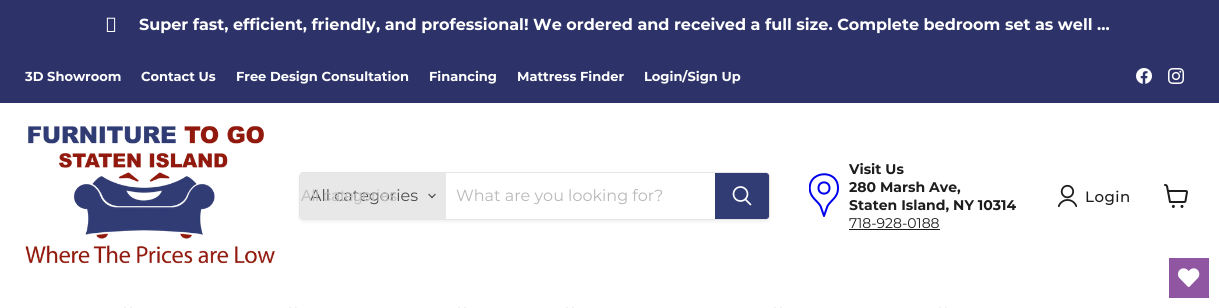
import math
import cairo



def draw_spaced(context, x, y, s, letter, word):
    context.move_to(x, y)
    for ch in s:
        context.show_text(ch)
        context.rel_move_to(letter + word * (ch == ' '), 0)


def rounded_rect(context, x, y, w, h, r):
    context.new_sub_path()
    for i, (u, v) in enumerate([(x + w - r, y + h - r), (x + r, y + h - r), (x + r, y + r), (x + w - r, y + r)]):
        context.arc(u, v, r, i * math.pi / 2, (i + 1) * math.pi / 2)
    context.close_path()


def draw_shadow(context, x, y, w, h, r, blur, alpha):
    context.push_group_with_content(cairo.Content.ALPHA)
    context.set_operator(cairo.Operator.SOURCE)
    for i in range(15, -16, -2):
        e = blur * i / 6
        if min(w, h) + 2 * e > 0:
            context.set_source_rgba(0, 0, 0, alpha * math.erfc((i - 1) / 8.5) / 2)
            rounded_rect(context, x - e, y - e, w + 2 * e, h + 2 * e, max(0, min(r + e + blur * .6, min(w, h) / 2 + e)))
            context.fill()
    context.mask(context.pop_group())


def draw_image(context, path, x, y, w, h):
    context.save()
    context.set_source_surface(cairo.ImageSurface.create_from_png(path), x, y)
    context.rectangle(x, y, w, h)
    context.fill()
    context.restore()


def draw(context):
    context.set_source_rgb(1, 1, 1)
    context.paint()
    context.set_source_rgb(45 / 255, 51 / 255, 105 / 255)
    context.rectangle(0, 0, 1219, 103)
    context.fill()
    draw_image(context, "images/1.png", 106, 17, 10, 15)
    draw_image(context, "images/2.png", 1136, 68, 16, 16)
    draw_image(context, "images/3.png", 1168, 68, 16, 16)
    draw_image(context, "images/4.png", 25, 126, 250, 138)
    context.save()
    context.set_fill_rule(cairo.FillRule.EVEN_ODD)
    context.new_path()
    context.move_to(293, 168)
    context.line_to(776, 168)
    context.line_to(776, 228)
    context.line_to(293, 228)
    context.close_path()
    context.move_to(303, 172)
    context.line_to(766, 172)
    context.curve_to(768, 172, 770, 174, 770, 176)
    context.line_to(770, 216)
    context.curve_to(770, 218, 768, 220, 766, 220)
    context.line_to(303, 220)
    context.curve_to(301, 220, 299, 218, 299, 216)
    context.line_to(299, 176)
    context.curve_to(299, 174, 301, 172, 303, 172)
    context.close_path()
    context.clip()
    context.set_source_rgb(128 / 255, 128 / 255, 128 / 255)
    draw_shadow(context, 299, 174, 471, 48, 4, 1.5, 0.11)
    context.restore()
    rounded_rect(context, 299.5, 172.5, 470, 47, 3.5)
    context.set_source_rgba(128 / 255, 128 / 255, 128 / 255, 0.2)
    context.set_line_width(1)
    context.stroke()
    context.set_source_rgb(232 / 255, 232 / 255, 232 / 255)
    context.new_path()
    context.move_to(303, 173)
    context.line_to(446, 173)
    context.line_to(446, 219)
    context.line_to(303, 219)
    context.curve_to(301.5, 219, 300, 217.5, 300, 216)
    context.line_to(300, 176)
    context.curve_to(300, 174.5, 301.5, 173, 303, 173)
    context.close_path()
    context.fill()
    draw_image(context, "images/5.png", 428, 193, 8, 6)
    context.set_source_rgb(49 / 255, 60 / 255, 117 / 255)
    context.new_path()
    context.move_to(715.5, 173.5)
    context.line_to(766, 173.5)
    context.curve_to(767.5, 173.5, 768.5, 174.5, 768.5, 176)
    context.line_to(768.5, 216)
    context.curve_to(768.5, 217.5, 767.5, 218.5, 766, 218.5)
    context.line_to(715.5, 218.5)
    context.close_path()
    context.fill_preserve()
    context.stroke()
    context.new_path()
    context.move_to(750.5, 204.5)
    context.line_to(745.5, 199.5)
    context.set_source_rgb(1, 1, 1)
    context.set_line_width(1.7)
    context.set_line_cap(cairo.LineCap.ROUND)
    context.stroke()
    context.arc(740.5, 194, 7, 0, 2 * math.pi)
    context.set_line_cap(cairo.LineCap.BUTT)
    context.stroke()
    context.save()
    context.rectangle(809, 173, 30, 44)
    context.clip()
    context.new_path()
    context.move_to(838, 188)
    context.curve_to(838, 197.5, 831.5, 199.5, 827.5, 206)
    context.line_to(824, 216)
    context.line_to(820.5, 206)
    context.curve_to(817, 200.5, 811.5, 198, 810, 191)
    context.curve_to(806.5, 170.5, 838, 168, 838, 188)
    context.close_path()
    context.set_source_rgb(0, 0, 238 / 255)
    context.set_line_width(2)
    context.set_line_cap(cairo.LineCap.ROUND)
    context.set_line_join(cairo.LineJoin.ROUND)
    context.stroke()
    context.restore()
    context.new_path()
    context.move_to(818.5, 188)
    context.curve_to(818.5, 195.5, 829.5, 195.5, 829.5, 188)
    context.curve_to(829.5, 180.5, 818.5, 180.5, 818.5, 188)
    context.close_path()
    context.set_source_rgb(0, 0, 238 / 255)
    context.set_line_width(2)
    context.set_line_cap(cairo.LineCap.ROUND)
    context.set_line_join(cairo.LineJoin.ROUND)
    context.stroke()
    context.set_source_rgb(29 / 255, 29 / 255, 29 / 255)
    context.rectangle(849, 229, 91, 1)
    context.fill()
    draw_image(context, "images/6.png", 1057, 184, 20, 24)
    draw_image(context, "images/7.png", 1164, 184, 24, 24)
    draw_image(context, "images/8.png", 124, 307, 8, 1)
    draw_image(context, "images/8.png", 289, 307, 8, 1)
    draw_image(context, "images/8.png", 458, 307, 8, 1)
    draw_image(context, "images/8.png", 566, 307, 8, 1)
    draw_image(context, "images/8.png", 774, 307, 8, 1)
    draw_image(context, "images/8.png", 939, 307, 8, 1)
    context.set_source_rgb(144 / 255, 86 / 255, 162 / 255)
    context.rectangle(1169, 258, 40, 40)
    context.fill()
    draw_image(context, "images/9.png", 1178, 268, 22, 19)
    context.select_font_face("Montserrat", cairo.FontSlant.NORMAL, cairo.FontWeight.BOLD)
    context.set_font_size(16)
    context.set_source_rgb(1, 1, 1)
    context.move_to(139, 30)
    context.show_text("Super fast, efficient, friendly, and professional! We ordered and received a full size. Complete bedroom set as well ...")
    context.set_font_size(13)
    context.move_to(25, 81)
    context.show_text("3D Showroom")
    context.move_to(141, 81)
    context.show_text("Contact Us")
    context.move_to(236, 81)
    context.show_text("Free Design Consultation")
    context.move_to(429, 81)
    context.show_text("Financing")
    context.move_to(517, 81)
    context.show_text("Mattress Finder")
    context.move_to(644, 81)
    context.show_text("Login/Sign Up")
    context.select_font_face("Montserrat")
    context.set_font_size(16)
    context.set_source_rgb(77 / 255, 77 / 255, 77 / 255)
    context.move_to(310, 201)
    context.show_text("All categories")
    context.select_font_face("Liberation Sans")
    context.set_source_rgb(194 / 255, 194 / 255, 194 / 255)
    context.move_to(301, 201)
    context.show_text("All categories")
    context.select_font_face("Montserrat")
    context.set_source_rgb(184 / 255, 184 / 255, 184 / 255)
    context.move_to(456, 201)
    context.show_text("What are you looking for?")
    context.select_font_face("Montserrat", cairo.FontSlant.NORMAL, cairo.FontWeight.BOLD)
    context.set_font_size(14)
    context.set_source_rgb(29 / 255, 29 / 255, 29 / 255)
    context.move_to(849, 174)
    context.show_text("Visit Us")
    context.move_to(849, 192)
    context.show_text("280 Marsh Ave,")
    context.move_to(849, 210)
    context.show_text("Staten Island, NY 10314")
    context.select_font_face("Montserrat")
    context.move_to(849, 228)
    context.show_text("718-928-0188")
    context.select_font_face("Montserrat Medium")
    context.set_font_size(15)
    draw_spaced(context, 1085, 202, "Login", 0.5, 0)


surface = cairo.ImageSurface(cairo.Format.RGB24, 1219, 308)
context = cairo.Context(surface)
options = cairo.FontOptions()
options.set_hint_metrics(cairo.HintMetrics.OFF)
options.set_hint_style(cairo.HintStyle.NONE)
context.set_font_options(options)
context.set_miter_limit(4)
draw(context)
surface.write_to_png("out.png")
